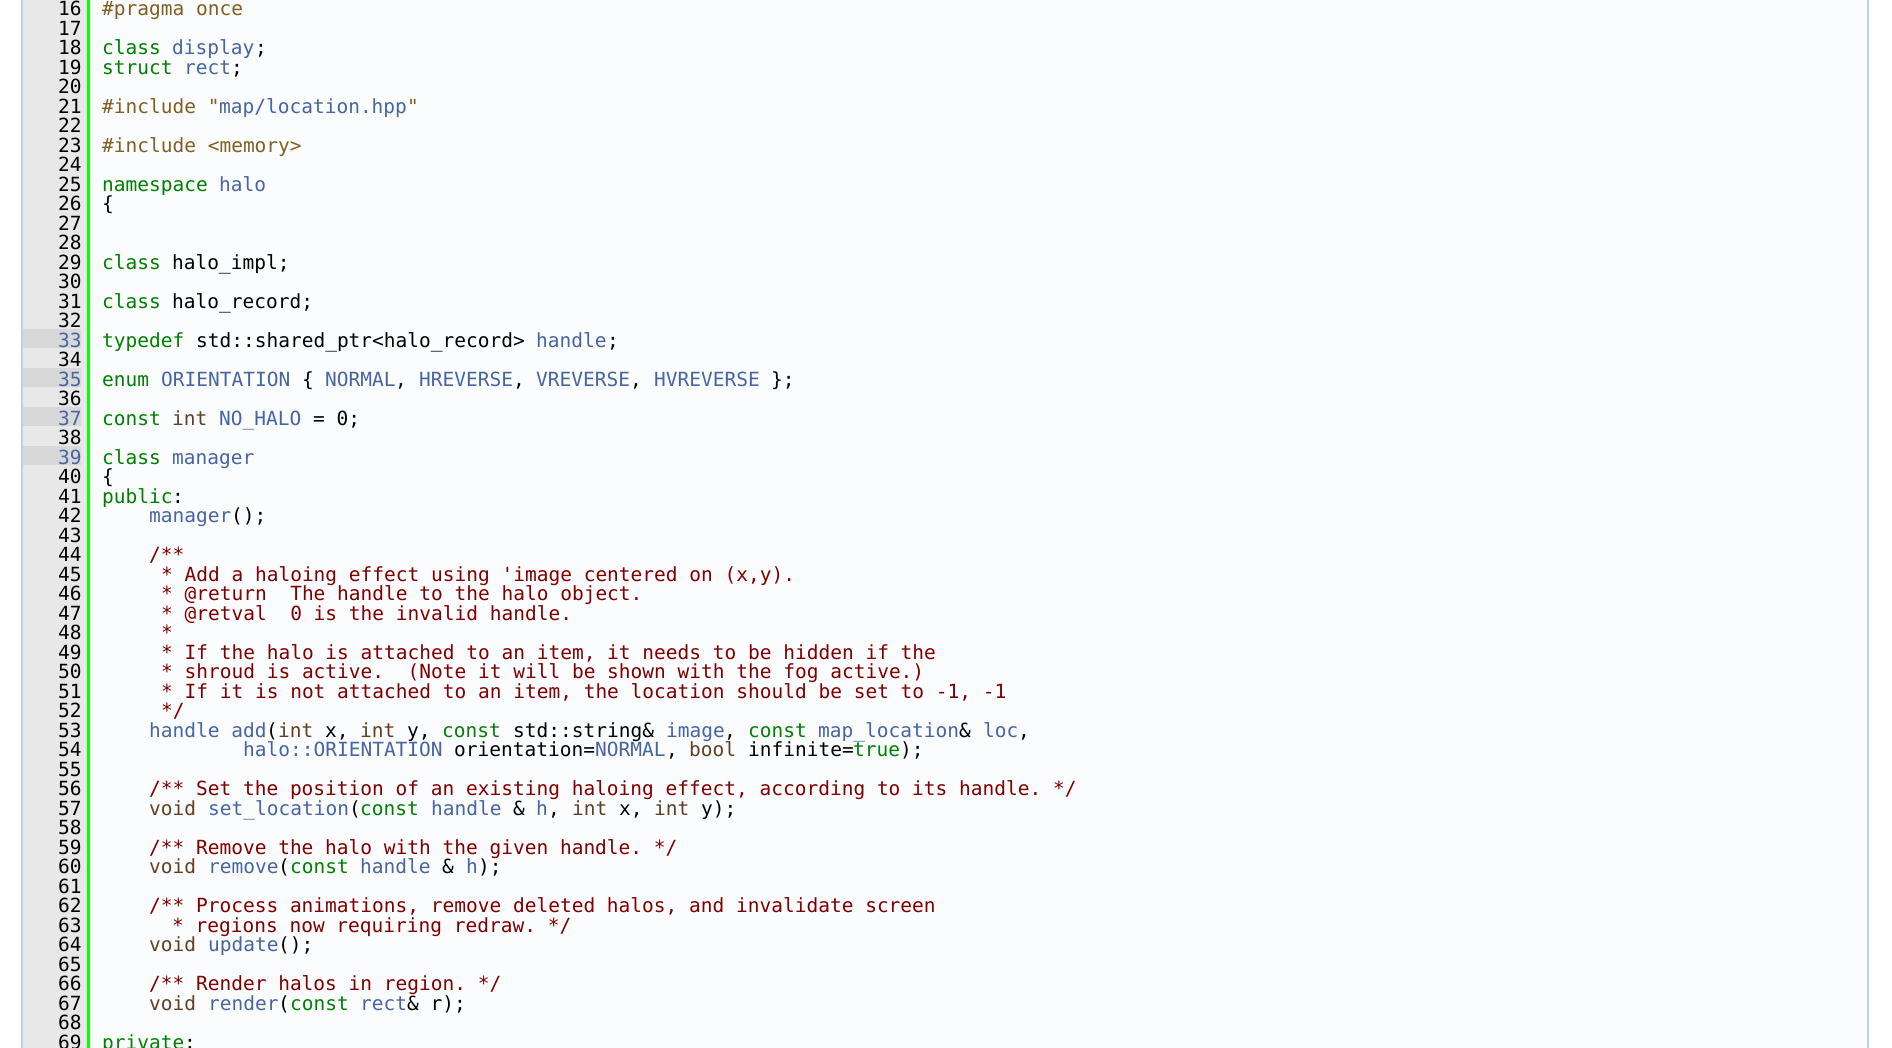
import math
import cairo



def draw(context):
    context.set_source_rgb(1, 1, 1)
    context.paint()
    context.set_source_rgb(251 / 255, 252 / 255, 253 / 255)
    context.rectangle(90, 0, 1777, 1048)
    context.fill()
    context.rectangle(22, -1, 1846, 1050)
    context.set_source_rgb(196 / 255, 207 / 255, 229 / 255)
    context.stroke()
    context.set_source_rgb(232 / 255, 232 / 255, 232 / 255)
    context.rectangle(23, 0, 64, 329)
    context.fill()
    context.set_source_rgb(0, 1, 0)
    context.rectangle(87, 0, 3, 1048)
    context.fill()
    context.set_source_rgb(232 / 255, 232 / 255, 232 / 255)
    context.rectangle(81, 329, 6, 19)
    context.fill()
    context.set_source_rgb(216 / 255, 216 / 255, 216 / 255)
    context.rectangle(23, 329, 58, 19)
    context.fill()
    context.set_source_rgb(232 / 255, 232 / 255, 232 / 255)
    context.rectangle(23, 348, 64, 20)
    context.fill()
    context.rectangle(81, 368, 6, 19)
    context.fill()
    context.set_source_rgb(216 / 255, 216 / 255, 216 / 255)
    context.rectangle(23, 368, 58, 19)
    context.fill()
    context.set_source_rgb(232 / 255, 232 / 255, 232 / 255)
    context.rectangle(23, 387, 64, 20)
    context.fill()
    context.rectangle(81, 407, 6, 19)
    context.fill()
    context.set_source_rgb(216 / 255, 216 / 255, 216 / 255)
    context.rectangle(23, 407, 58, 19)
    context.fill()
    context.set_source_rgb(232 / 255, 232 / 255, 232 / 255)
    context.rectangle(23, 426, 64, 20)
    context.fill()
    context.rectangle(81, 446, 6, 19)
    context.fill()
    context.set_source_rgb(216 / 255, 216 / 255, 216 / 255)
    context.rectangle(23, 446, 58, 19)
    context.fill()
    context.set_source_rgb(232 / 255, 232 / 255, 232 / 255)
    context.rectangle(23, 465, 64, 583)
    context.fill()
    context.select_font_face("DejaVu Sans Mono")
    context.set_font_size(19.5)
    context.set_source_rgb(0, 0, 0)
    context.move_to(58, 15)
    context.show_text("16")
    context.set_source_rgb(128 / 255, 96 / 255, 32 / 255)
    context.move_to(102, 15)
    context.show_text("#pragma once")
    context.set_source_rgb(0, 0, 0)
    context.move_to(58, 35)
    context.show_text("17")
    context.move_to(58, 54)
    context.show_text("18")
    context.set_source_rgb(0, 128 / 255, 0)
    context.move_to(102, 54)
    context.show_text("class")
    context.set_source_rgb(70 / 255, 101 / 255, 162 / 255)
    context.move_to(172, 54)
    context.show_text("display")
    context.set_source_rgb(0, 0, 0)
    context.move_to(255, 54)
    context.show_text(";")
    context.move_to(58, 74)
    context.show_text("19")
    context.set_source_rgb(0, 128 / 255, 0)
    context.move_to(102, 74)
    context.show_text("struct")
    context.set_source_rgb(70 / 255, 101 / 255, 162 / 255)
    context.move_to(184, 74)
    context.show_text("rect")
    context.set_source_rgb(0, 0, 0)
    context.move_to(231, 74)
    context.show_text(";")
    context.move_to(58, 93)
    context.show_text("20")
    context.move_to(58, 113)
    context.show_text("21")
    context.set_source_rgb(128 / 255, 96 / 255, 32 / 255)
    context.move_to(102, 113)
    context.show_text("#include \"")
    context.set_source_rgb(70 / 255, 101 / 255, 162 / 255)
    context.move_to(219, 113)
    context.show_text("map/location.hpp")
    context.set_source_rgb(128 / 255, 96 / 255, 32 / 255)
    context.move_to(407, 113)
    context.show_text("\"")
    context.set_source_rgb(0, 0, 0)
    context.move_to(58, 132)
    context.show_text("22")
    context.move_to(58, 152)
    context.show_text("23")
    context.set_source_rgb(128 / 255, 96 / 255, 32 / 255)
    context.move_to(102, 152)
    context.show_text("#include <memory>")
    context.set_source_rgb(0, 0, 0)
    context.move_to(58, 171)
    context.show_text("24")
    context.move_to(58, 191)
    context.show_text("25")
    context.set_source_rgb(0, 128 / 255, 0)
    context.move_to(102, 191)
    context.show_text("namespace")
    context.set_source_rgb(70 / 255, 101 / 255, 162 / 255)
    context.move_to(219, 191)
    context.show_text("halo")
    context.set_source_rgb(0, 0, 0)
    context.move_to(58, 210)
    context.show_text("26")
    context.move_to(102, 210)
    context.show_text("{")
    context.move_to(58, 230)
    context.show_text("27")
    context.move_to(58, 249)
    context.show_text("28")
    context.move_to(58, 269)
    context.show_text("29")
    context.set_source_rgb(0, 128 / 255, 0)
    context.move_to(102, 269)
    context.show_text("class")
    context.set_source_rgb(0, 0, 0)
    context.move_to(172, 269)
    context.show_text("halo_impl;")
    context.move_to(58, 288)
    context.show_text("30")
    context.move_to(58, 308)
    context.show_text("31")
    context.set_source_rgb(0, 128 / 255, 0)
    context.move_to(102, 308)
    context.show_text("class")
    context.set_source_rgb(0, 0, 0)
    context.move_to(172, 308)
    context.show_text("halo_record;")
    context.move_to(58, 327)
    context.show_text("32")
    context.set_source_rgb(70 / 255, 101 / 255, 162 / 255)
    context.move_to(58, 347)
    context.show_text("33")
    context.set_source_rgb(0, 128 / 255, 0)
    context.move_to(102, 347)
    context.show_text("typedef")
    context.set_source_rgb(0, 0, 0)
    context.move_to(196, 347)
    context.show_text("std::shared_ptr<halo_record>")
    context.set_source_rgb(70 / 255, 101 / 255, 162 / 255)
    context.move_to(536, 347)
    context.show_text("handle")
    context.set_source_rgb(0, 0, 0)
    context.move_to(607, 347)
    context.show_text(";")
    context.move_to(58, 366)
    context.show_text("34")
    context.set_source_rgb(70 / 255, 101 / 255, 162 / 255)
    context.move_to(58, 386)
    context.show_text("35")
    context.set_source_rgb(0, 128 / 255, 0)
    context.move_to(102, 386)
    context.show_text("enum")
    context.set_source_rgb(70 / 255, 101 / 255, 162 / 255)
    context.move_to(161, 386)
    context.show_text("ORIENTATION")
    context.set_source_rgb(0, 0, 0)
    context.move_to(302, 386)
    context.show_text("{")
    context.set_source_rgb(70 / 255, 101 / 255, 162 / 255)
    context.move_to(325, 386)
    context.show_text("NORMAL")
    context.set_source_rgb(0, 0, 0)
    context.move_to(395, 386)
    context.show_text(",")
    context.set_source_rgb(70 / 255, 101 / 255, 162 / 255)
    context.move_to(419, 386)
    context.show_text("HREVERSE")
    context.set_source_rgb(0, 0, 0)
    context.move_to(513, 386)
    context.show_text(",")
    context.set_source_rgb(70 / 255, 101 / 255, 162 / 255)
    context.move_to(536, 386)
    context.show_text("VREVERSE")
    context.set_source_rgb(0, 0, 0)
    context.move_to(630, 386)
    context.show_text(",")
    context.set_source_rgb(70 / 255, 101 / 255, 162 / 255)
    context.move_to(654, 386)
    context.show_text("HVREVERSE")
    context.set_source_rgb(0, 0, 0)
    context.move_to(771, 386)
    context.show_text("};")
    context.move_to(58, 405)
    context.show_text("36")
    context.set_source_rgb(70 / 255, 101 / 255, 162 / 255)
    context.move_to(58, 425)
    context.show_text("37")
    context.set_source_rgb(0, 128 / 255, 0)
    context.move_to(102, 425)
    context.show_text("const")
    context.set_source_rgb(96 / 255, 64 / 255, 32 / 255)
    context.move_to(172, 425)
    context.show_text("int")
    context.set_source_rgb(70 / 255, 101 / 255, 162 / 255)
    context.move_to(219, 425)
    context.show_text("NO_HALO")
    context.set_source_rgb(0, 0, 0)
    context.move_to(313, 425)
    context.show_text("= 0;")
    context.move_to(58, 444)
    context.show_text("38")
    context.set_source_rgb(70 / 255, 101 / 255, 162 / 255)
    context.move_to(58, 464)
    context.show_text("39")
    context.set_source_rgb(0, 128 / 255, 0)
    context.move_to(102, 464)
    context.show_text("class")
    context.set_source_rgb(70 / 255, 101 / 255, 162 / 255)
    context.move_to(172, 464)
    context.show_text("manager")
    context.set_source_rgb(0, 0, 0)
    context.move_to(58, 483)
    context.show_text("40")
    context.move_to(102, 483)
    context.show_text("{")
    context.move_to(58, 503)
    context.show_text("41")
    context.set_source_rgb(0, 128 / 255, 0)
    context.move_to(102, 503)
    context.show_text("public")
    context.set_source_rgb(0, 0, 0)
    context.move_to(172, 503)
    context.show_text(":")
    context.move_to(58, 522)
    context.show_text("42")
    context.set_source_rgb(70 / 255, 101 / 255, 162 / 255)
    context.move_to(149, 522)
    context.show_text("manager")
    context.set_source_rgb(0, 0, 0)
    context.move_to(231, 522)
    context.show_text("();")
    context.move_to(58, 542)
    context.show_text("43")
    context.move_to(58, 561)
    context.show_text("44")
    context.set_source_rgb(128 / 255, 0, 0)
    context.move_to(149, 561)
    context.show_text("/**")
    context.set_source_rgb(0, 0, 0)
    context.move_to(58, 581)
    context.show_text("45")
    context.set_source_rgb(128 / 255, 0, 0)
    context.move_to(161, 581)
    context.show_text("* Add a haloing effect using 'image centered on (x,y).")
    context.set_source_rgb(0, 0, 0)
    context.move_to(58, 600)
    context.show_text("46")
    context.set_source_rgb(128 / 255, 0, 0)
    context.move_to(161, 600)
    context.show_text("* @return  The handle to the halo object.")
    context.set_source_rgb(0, 0, 0)
    context.move_to(58, 620)
    context.show_text("47")
    context.set_source_rgb(128 / 255, 0, 0)
    context.move_to(161, 620)
    context.show_text("* @retval  0 is the invalid handle.")
    context.set_source_rgb(0, 0, 0)
    context.move_to(58, 639)
    context.show_text("48")
    context.set_source_rgb(128 / 255, 0, 0)
    context.move_to(161, 639)
    context.show_text("*")
    context.set_source_rgb(0, 0, 0)
    context.move_to(58, 659)
    context.show_text("49")
    context.set_source_rgb(128 / 255, 0, 0)
    context.move_to(161, 659)
    context.show_text("* If the halo is attached to an item, it needs to be hidden if the")
    context.set_source_rgb(0, 0, 0)
    context.move_to(58, 678)
    context.show_text("50")
    context.set_source_rgb(128 / 255, 0, 0)
    context.move_to(161, 678)
    context.show_text("* shroud is active.  (Note it will be shown with the fog active.)")
    context.set_source_rgb(0, 0, 0)
    context.move_to(58, 698)
    context.show_text("51")
    context.set_source_rgb(128 / 255, 0, 0)
    context.move_to(161, 698)
    context.show_text("* If it is not attached to an item, the location should be set to -1, -1")
    context.set_source_rgb(0, 0, 0)
    context.move_to(58, 717)
    context.show_text("52")
    context.set_source_rgb(128 / 255, 0, 0)
    context.move_to(161, 717)
    context.show_text("*/")
    context.set_source_rgb(0, 0, 0)
    context.move_to(58, 737)
    context.show_text("53")
    context.set_source_rgb(70 / 255, 101 / 255, 162 / 255)
    context.move_to(149, 737)
    context.show_text("handle add")
    context.set_source_rgb(0, 0, 0)
    context.move_to(266, 737)
    context.show_text("(")
    context.set_source_rgb(96 / 255, 64 / 255, 32 / 255)
    context.move_to(278, 737)
    context.show_text("int")
    context.set_source_rgb(0, 0, 0)
    context.move_to(325, 737)
    context.show_text("x,")
    context.set_source_rgb(96 / 255, 64 / 255, 32 / 255)
    context.move_to(360, 737)
    context.show_text("int")
    context.set_source_rgb(0, 0, 0)
    context.move_to(407, 737)
    context.show_text("y,")
    context.set_source_rgb(0, 128 / 255, 0)
    context.move_to(442, 737)
    context.show_text("const")
    context.set_source_rgb(0, 0, 0)
    context.move_to(513, 737)
    context.show_text("std::string&")
    context.set_source_rgb(70 / 255, 101 / 255, 162 / 255)
    context.move_to(666, 737)
    context.show_text("image")
    context.set_source_rgb(0, 0, 0)
    context.move_to(724, 737)
    context.show_text(",")
    context.set_source_rgb(0, 128 / 255, 0)
    context.move_to(748, 737)
    context.show_text("const")
    context.set_source_rgb(70 / 255, 101 / 255, 162 / 255)
    context.move_to(818, 737)
    context.show_text("map_location")
    context.set_source_rgb(0, 0, 0)
    context.move_to(959, 737)
    context.show_text("&")
    context.set_source_rgb(70 / 255, 101 / 255, 162 / 255)
    context.move_to(983, 737)
    context.show_text("loc")
    context.set_source_rgb(0, 0, 0)
    context.move_to(1018, 737)
    context.show_text(",")
    context.move_to(58, 756)
    context.show_text("54")
    context.set_source_rgb(70 / 255, 101 / 255, 162 / 255)
    context.move_to(243, 756)
    context.show_text("halo::ORIENTATION")
    context.set_source_rgb(0, 0, 0)
    context.move_to(454, 756)
    context.show_text("orientation=")
    context.set_source_rgb(70 / 255, 101 / 255, 162 / 255)
    context.move_to(595, 756)
    context.show_text("NORMAL")
    context.set_source_rgb(0, 0, 0)
    context.move_to(666, 756)
    context.show_text(",")
    context.set_source_rgb(96 / 255, 64 / 255, 32 / 255)
    context.move_to(689, 756)
    context.show_text("bool")
    context.set_source_rgb(0, 0, 0)
    context.move_to(748, 756)
    context.show_text("infinite=")
    context.set_source_rgb(0, 128 / 255, 0)
    context.move_to(853, 756)
    context.show_text("true")
    context.set_source_rgb(0, 0, 0)
    context.move_to(900, 756)
    context.show_text(");")
    context.move_to(58, 776)
    context.show_text("55")
    context.move_to(58, 795)
    context.show_text("56")
    context.set_source_rgb(128 / 255, 0, 0)
    context.move_to(149, 795)
    context.show_text("/** Set the position of an existing haloing effect, according to its handle. */")
    context.set_source_rgb(0, 0, 0)
    context.move_to(58, 815)
    context.show_text("57")
    context.set_source_rgb(96 / 255, 64 / 255, 32 / 255)
    context.move_to(149, 815)
    context.show_text("void")
    context.set_source_rgb(70 / 255, 101 / 255, 162 / 255)
    context.move_to(208, 815)
    context.show_text("set_location")
    context.set_source_rgb(0, 0, 0)
    context.move_to(349, 815)
    context.show_text("(")
    context.set_source_rgb(0, 128 / 255, 0)
    context.move_to(360, 815)
    context.show_text("const")
    context.set_source_rgb(70 / 255, 101 / 255, 162 / 255)
    context.move_to(431, 815)
    context.show_text("handle")
    context.set_source_rgb(0, 0, 0)
    context.move_to(513, 815)
    context.show_text("&")
    context.set_source_rgb(70 / 255, 101 / 255, 162 / 255)
    context.move_to(536, 815)
    context.show_text("h")
    context.set_source_rgb(0, 0, 0)
    context.move_to(548, 815)
    context.show_text(",")
    context.set_source_rgb(96 / 255, 64 / 255, 32 / 255)
    context.move_to(572, 815)
    context.show_text("int")
    context.set_source_rgb(0, 0, 0)
    context.move_to(619, 815)
    context.show_text("x,")
    context.set_source_rgb(96 / 255, 64 / 255, 32 / 255)
    context.move_to(654, 815)
    context.show_text("int")
    context.set_source_rgb(0, 0, 0)
    context.move_to(701, 815)
    context.show_text("y);")
    context.move_to(58, 834)
    context.show_text("58")
    context.move_to(58, 854)
    context.show_text("59")
    context.set_source_rgb(128 / 255, 0, 0)
    context.move_to(149, 854)
    context.show_text("/** Remove the halo with the given handle. */")
    context.set_source_rgb(0, 0, 0)
    context.move_to(58, 873)
    context.show_text("60")
    context.set_source_rgb(96 / 255, 64 / 255, 32 / 255)
    context.move_to(149, 873)
    context.show_text("void")
    context.set_source_rgb(70 / 255, 101 / 255, 162 / 255)
    context.move_to(208, 873)
    context.show_text("remove")
    context.set_source_rgb(0, 0, 0)
    context.move_to(278, 873)
    context.show_text("(")
    context.set_source_rgb(0, 128 / 255, 0)
    context.move_to(290, 873)
    context.show_text("const")
    context.set_source_rgb(70 / 255, 101 / 255, 162 / 255)
    context.move_to(360, 873)
    context.show_text("handle")
    context.set_source_rgb(0, 0, 0)
    context.move_to(442, 873)
    context.show_text("&")
    context.set_source_rgb(70 / 255, 101 / 255, 162 / 255)
    context.move_to(466, 873)
    context.show_text("h")
    context.set_source_rgb(0, 0, 0)
    context.move_to(478, 873)
    context.show_text(");")
    context.move_to(58, 893)
    context.show_text("61")
    context.move_to(58, 912)
    context.show_text("62")
    context.set_source_rgb(128 / 255, 0, 0)
    context.move_to(149, 912)
    context.show_text("/** Process animations, remove deleted halos, and invalidate screen")
    context.set_source_rgb(0, 0, 0)
    context.move_to(58, 932)
    context.show_text("63")
    context.set_source_rgb(128 / 255, 0, 0)
    context.move_to(172, 932)
    context.show_text("* regions now requiring redraw. */")
    context.set_source_rgb(0, 0, 0)
    context.move_to(58, 951)
    context.show_text("64")
    context.set_source_rgb(96 / 255, 64 / 255, 32 / 255)
    context.move_to(149, 951)
    context.show_text("void")
    context.set_source_rgb(70 / 255, 101 / 255, 162 / 255)
    context.move_to(208, 951)
    context.show_text("update")
    context.set_source_rgb(0, 0, 0)
    context.move_to(278, 951)
    context.show_text("();")
    context.move_to(58, 971)
    context.show_text("65")
    context.move_to(58, 990)
    context.show_text("66")
    context.set_source_rgb(128 / 255, 0, 0)
    context.move_to(149, 990)
    context.show_text("/** Render halos in region. */")
    context.set_source_rgb(0, 0, 0)
    context.move_to(58, 1010)
    context.show_text("67")
    context.set_source_rgb(96 / 255, 64 / 255, 32 / 255)
    context.move_to(149, 1010)
    context.show_text("void")
    context.set_source_rgb(70 / 255, 101 / 255, 162 / 255)
    context.move_to(208, 1010)
    context.show_text("render")
    context.set_source_rgb(0, 0, 0)
    context.move_to(278, 1010)
    context.show_text("(")
    context.set_source_rgb(0, 128 / 255, 0)
    context.move_to(290, 1010)
    context.show_text("const")
    context.set_source_rgb(70 / 255, 101 / 255, 162 / 255)
    context.move_to(360, 1010)
    context.show_text("rect")
    context.set_source_rgb(0, 0, 0)
    context.move_to(407, 1010)
    context.show_text("& r);")
    context.move_to(58, 1029)
    context.show_text("68")
    context.move_to(58, 1049)
    context.show_text("69")
    context.set_source_rgb(0, 128 / 255, 0)
    context.move_to(102, 1049)
    context.show_text("private")
    context.set_source_rgb(0, 0, 0)
    context.move_to(184, 1049)
    context.show_text(":")


surface = cairo.ImageSurface(cairo.Format.RGB24, 1892, 1048)
context = cairo.Context(surface)
options = cairo.FontOptions()
options.set_hint_metrics(cairo.HintMetrics.OFF)
options.set_hint_style(cairo.HintStyle.NONE)
context.set_font_options(options)
context.set_miter_limit(4)
draw(context)
surface.write_to_png("out.png")
